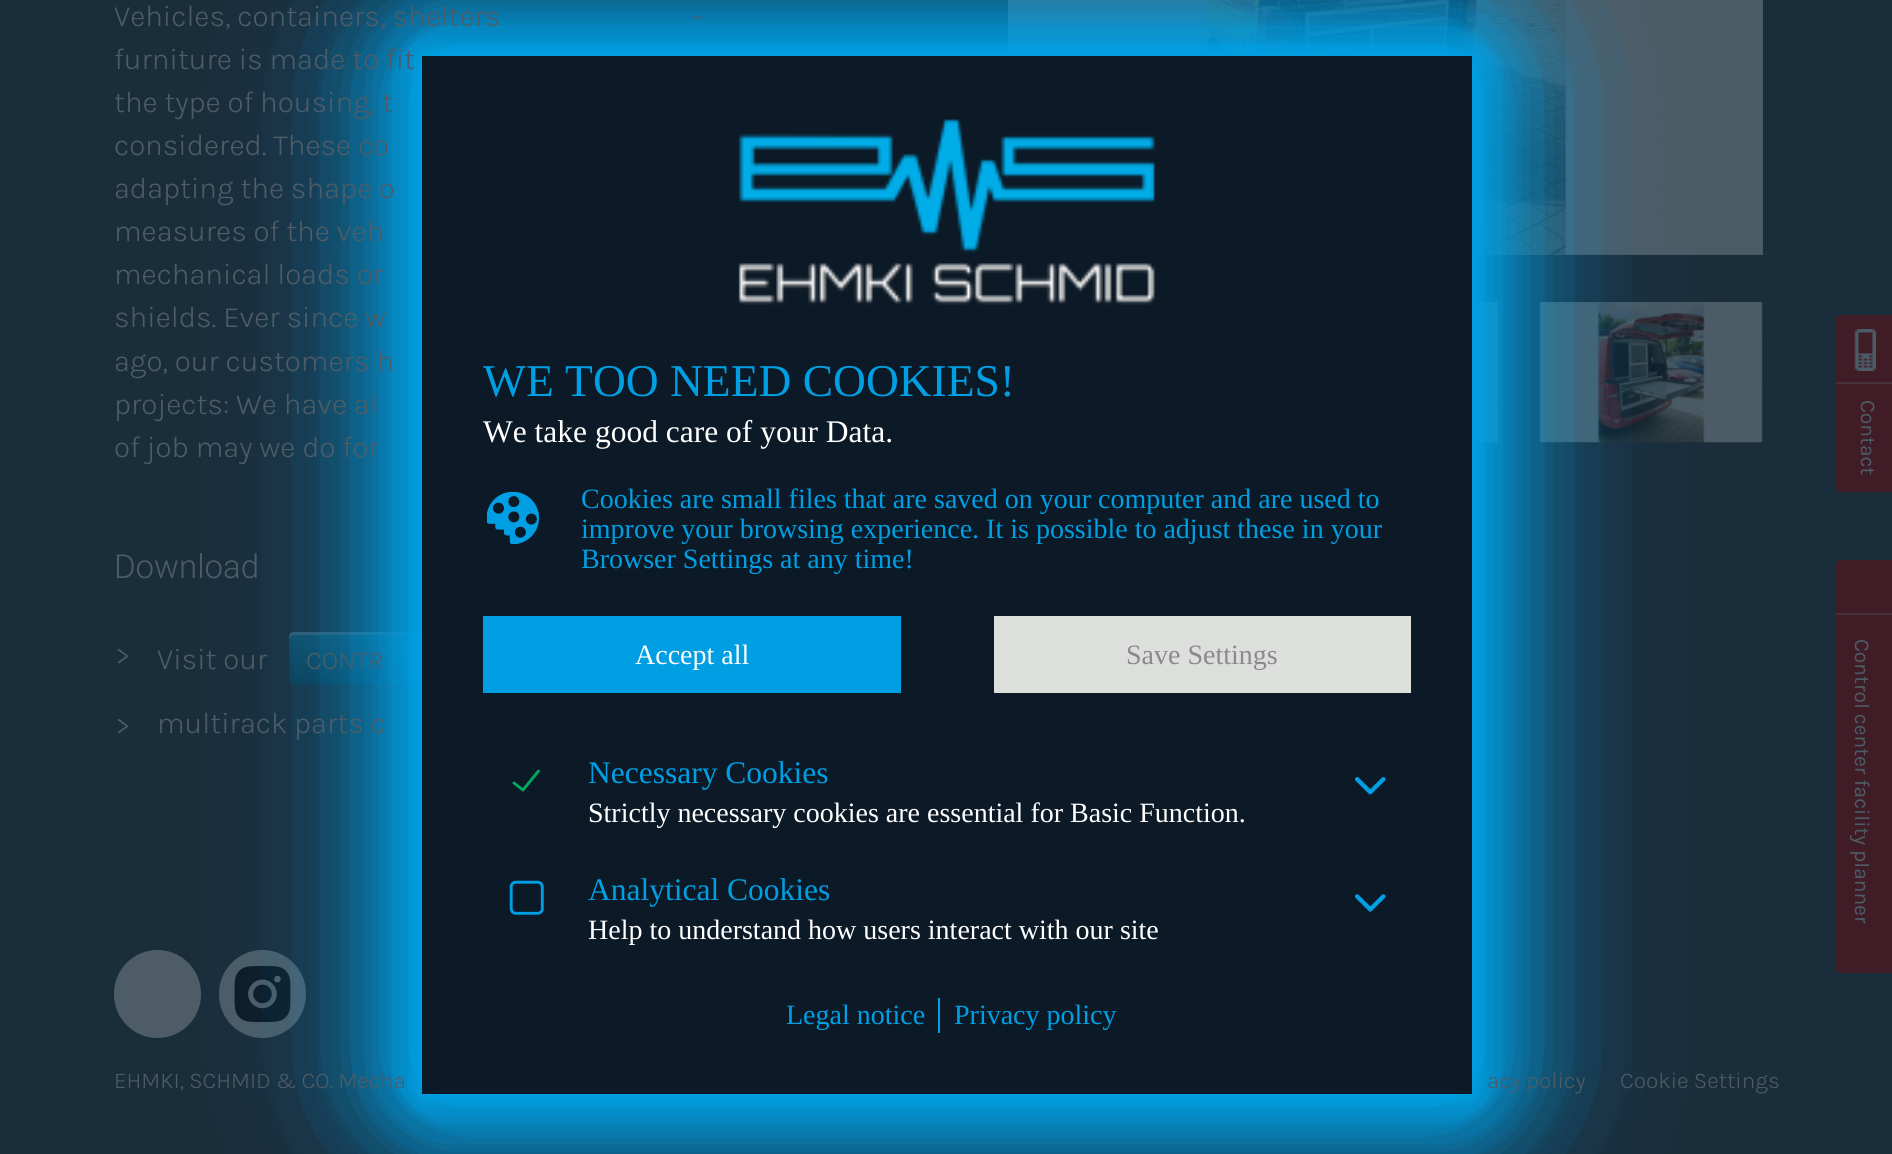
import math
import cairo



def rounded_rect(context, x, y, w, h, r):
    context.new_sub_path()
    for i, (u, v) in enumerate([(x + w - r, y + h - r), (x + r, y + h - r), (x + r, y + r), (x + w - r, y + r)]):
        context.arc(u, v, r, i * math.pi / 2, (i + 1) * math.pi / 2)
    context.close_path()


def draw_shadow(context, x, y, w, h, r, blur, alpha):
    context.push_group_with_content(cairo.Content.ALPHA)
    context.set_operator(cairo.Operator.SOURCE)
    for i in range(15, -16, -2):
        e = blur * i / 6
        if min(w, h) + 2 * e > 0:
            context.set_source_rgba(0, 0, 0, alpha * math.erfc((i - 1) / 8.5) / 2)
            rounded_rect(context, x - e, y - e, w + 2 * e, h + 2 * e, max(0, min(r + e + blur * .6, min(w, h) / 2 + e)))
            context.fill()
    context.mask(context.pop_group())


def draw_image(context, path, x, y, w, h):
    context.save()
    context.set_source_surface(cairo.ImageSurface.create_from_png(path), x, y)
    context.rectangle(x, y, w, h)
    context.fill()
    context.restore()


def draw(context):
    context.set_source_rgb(26 / 255, 45 / 255, 59 / 255)
    context.paint()
    draw_image(context, "images/1.png", 1008, 0, 755, 255)
    draw_image(context, "images/2.png", 1472, 302, 27, 141)
    draw_image(context, "images/3.png", 1539, 302, 224, 141)
    gradient = cairo.LinearGradient(466, 632, 466, 684)
    gradient.add_color_stop_rgba(0.05, 19 / 255, 74 / 255, 99 / 255, 1)
    gradient.add_color_stop_rgba(1, 13 / 255, 55 / 255, 76 / 255, 1)
    context.set_source(gradient)
    rounded_rect(context, 289, 632, 355, 52, 5)
    context.fill()
    context.set_source_rgb(56 / 255, 83 / 255, 103 / 255)
    context.new_path()
    context.move_to(294, 635)
    context.line_to(639, 635)
    context.curve_to(642, 635, 644, 638, 644, 640)
    context.line_to(644, 637)
    context.curve_to(644, 634, 642, 632, 639, 632)
    context.line_to(294, 632)
    context.curve_to(291, 632, 289, 634, 289, 637)
    context.line_to(289, 640)
    context.curve_to(289, 638, 291, 635, 294, 635)
    context.close_path()
    context.fill()
    context.set_source_rgb(77 / 255, 92 / 255, 103 / 255)
    rounded_rect(context, 114, 950, 87, 88, 43.5)
    context.fill()
    rounded_rect(context, 219, 950, 87, 88, 43.5)
    context.fill()
    draw_image(context, "images/10.png", 234, 966, 57, 56)
    context.set_source_rgb(0, 159 / 255, 227 / 255)
    draw_shadow(context, 422, 56, 1050, 1038, 0, 87.5, 1)
    draw_shadow(context, 422, 56, 1050, 1038, 0, 70, 1)
    draw_shadow(context, 422, 56, 1050, 1038, 0, 61, 1)
    draw_shadow(context, 422, 56, 1050, 1038, 0, 26, 1)
    draw_shadow(context, 422, 56, 1050, 1038, 0, 17.5, 1)
    draw_shadow(context, 422, 56, 1050, 1038, 0, 9, 1)
    context.set_source_rgb(12 / 255, 26 / 255, 39 / 255)
    context.rectangle(422, 56, 1050, 1038)
    context.fill()
    draw_image(context, "images/4.png", 738, 119, 417, 186)
    draw_image(context, "images/5.png", 487, 492, 52, 52)
    context.set_source_rgb(0, 159 / 255, 227 / 255)
    context.rectangle(483, 616, 418, 77)
    context.fill()
    context.set_source_rgb(221 / 255, 223 / 255, 221 / 255)
    context.rectangle(994, 616, 417, 77)
    context.fill()
    context.new_path()
    context.move_to(514, 783)
    context.line_to(523, 790)
    context.line_to(538.5, 771)
    context.set_source_rgb(0, 168 / 255, 96 / 255)
    context.set_line_width(2.9)
    context.set_line_cap(cairo.LineCap.ROUND)
    context.set_line_join(cairo.LineJoin.ROUND)
    context.stroke()
    draw_image(context, "images/6.png", 1355, 777, 31, 18)
    draw_image(context, "images/7.png", 509, 880, 35, 35)
    draw_image(context, "images/8.png", 1355, 894, 31, 18)
    context.set_source_rgb(0, 159 / 255, 227 / 255)
    context.rectangle(938, 998, 2, 35)
    context.fill()
    context.set_source_rgb(64 / 255, 28 / 255, 39 / 255)
    context.new_path()
    context.move_to(1840, 315)
    context.line_to(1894, 315)
    context.line_to(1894, 492)
    context.line_to(1840, 492)
    context.curve_to(1838, 492, 1836, 490, 1836, 488)
    context.line_to(1836, 319)
    context.curve_to(1836, 317, 1838, 315, 1840, 315)
    context.close_path()
    context.fill()
    context.set_source_rgb(70 / 255, 51 / 255, 61 / 255)
    context.rectangle(1836, 382, 56, 2)
    context.fill()
    draw_image(context, "images/9.png", 1854, 329, 22, 42)
    context.set_source_rgb(64 / 255, 28 / 255, 39 / 255)
    context.new_path()
    context.move_to(1840, 560)
    context.line_to(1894, 560)
    context.line_to(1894, 973)
    context.line_to(1840, 973)
    context.curve_to(1838, 973, 1836, 971, 1836, 969)
    context.line_to(1836, 564)
    context.curve_to(1836, 562, 1838, 560, 1840, 560)
    context.close_path()
    context.fill()
    context.set_source_rgb(70 / 255, 51 / 255, 61 / 255)
    context.rectangle(1836, 613, 56, 2)
    context.fill()
    context.select_font_face("Karla Light")
    context.set_font_size(29.75)
    context.set_source_rgb(77 / 255, 92 / 255, 103 / 255)
    context.move_to(114, 26)
    context.show_text("Vehicles, containers, shelters")
    context.move_to(692, 26)
    context.show_text("-")
    context.move_to(114, 69)
    context.show_text("furniture is made to fit")
    context.move_to(114, 112)
    context.show_text("the type of housing, t")
    context.move_to(114, 155)
    context.show_text("considered. These co")
    context.move_to(114, 198)
    context.show_text("adapting the shape o")
    context.move_to(114, 241)
    context.show_text("measures of the veh")
    context.move_to(114, 284)
    context.show_text("mechanical loads or")
    context.move_to(114, 327)
    context.show_text("shields. Ever since w")
    context.move_to(114, 371)
    context.show_text("ago, our customers h")
    context.move_to(114, 414)
    context.show_text("projects: We have al")
    context.move_to(114, 457)
    context.show_text("of job may we do for")
    context.select_font_face("Roboto Light")
    context.set_font_size(33)
    context.move_to(114, 578)
    context.show_text("Download")
    context.select_font_face("Karla Light")
    context.set_font_size(29.75)
    context.move_to(115, 665)
    context.show_text(">")
    context.move_to(157, 669)
    context.show_text("Visit our")
    context.set_font_size(26)
    context.move_to(306, 669)
    context.show_text("CONTR")
    context.set_font_size(29.75)
    context.move_to(115, 735)
    context.show_text(">")
    context.move_to(157, 733)
    context.show_text("multirack parts c")
    context.select_font_face("Liberation Serif")
    context.set_font_size(45.5)
    context.set_source_rgb(0, 159 / 255, 227 / 255)
    context.move_to(483, 396)
    context.show_text("WE TOO NEED COOKIES!")
    context.set_font_size(31.5)
    context.set_source_rgb(1, 1, 1)
    context.move_to(483, 442)
    context.show_text("We take good care of your Data.")
    context.set_font_size(28)
    context.set_source_rgb(0, 159 / 255, 227 / 255)
    context.move_to(581, 508)
    context.show_text("Cookies are small files that are saved on your computer and are used to")
    context.move_to(581, 538)
    context.show_text("improve your browsing experience. It is possible to adjust these in your")
    context.move_to(581, 568)
    context.show_text("Browser Settings at any time!")
    context.set_source_rgb(1, 1, 1)
    context.move_to(635, 664)
    context.show_text("Accept all")
    context.set_source_rgb(138 / 255, 138 / 255, 138 / 255)
    context.move_to(1126, 664)
    context.show_text("Save Settings")
    context.set_font_size(31.5)
    context.set_source_rgb(0, 159 / 255, 227 / 255)
    context.move_to(588, 783)
    context.show_text("Necessary Cookies")
    context.set_font_size(28)
    context.set_source_rgb(1, 1, 1)
    context.move_to(588, 822)
    context.show_text("Strictly necessary cookies are essential for Basic Function.")
    context.set_font_size(31.5)
    context.set_source_rgb(0, 159 / 255, 227 / 255)
    context.move_to(588, 900)
    context.show_text("Analytical Cookies")
    context.set_font_size(28)
    context.set_source_rgb(1, 1, 1)
    context.move_to(588, 939)
    context.show_text("Help to understand how users interact with our site")
    context.set_source_rgb(0, 159 / 255, 227 / 255)
    context.move_to(786, 1024)
    context.show_text("Legal notice")
    context.move_to(954, 1024)
    context.show_text("Privacy policy")
    context.select_font_face("Karla")
    context.set_font_size(21)
    context.set_source_rgb(77 / 255, 92 / 255, 103 / 255)
    context.save()
    context.translate(1861, 400)
    context.rotate(90 * math.pi / 180)
    context.move_to(0, 0)
    context.show_text("Contact")
    context.restore()
    context.save()
    context.translate(1855, 639)
    context.rotate(90 * math.pi / 180)
    context.move_to(0, 0)
    context.show_text("Control center facility planner")
    context.restore()
    context.select_font_face("Karla Light")
    context.set_font_size(22.75)
    context.move_to(114, 1088)
    context.show_text("EHMKI, SCHMID & CO. Mecha")
    context.move_to(1487, 1088)
    context.show_text("acy policy")
    context.move_to(1620, 1088)
    context.show_text("Cookie Settings")


surface = cairo.ImageSurface(cairo.Format.RGB24, 1892, 1154)
context = cairo.Context(surface)
options = cairo.FontOptions()
options.set_hint_metrics(cairo.HintMetrics.OFF)
options.set_hint_style(cairo.HintStyle.NONE)
context.set_font_options(options)
context.set_miter_limit(4)
draw(context)
surface.write_to_png("out.png")
